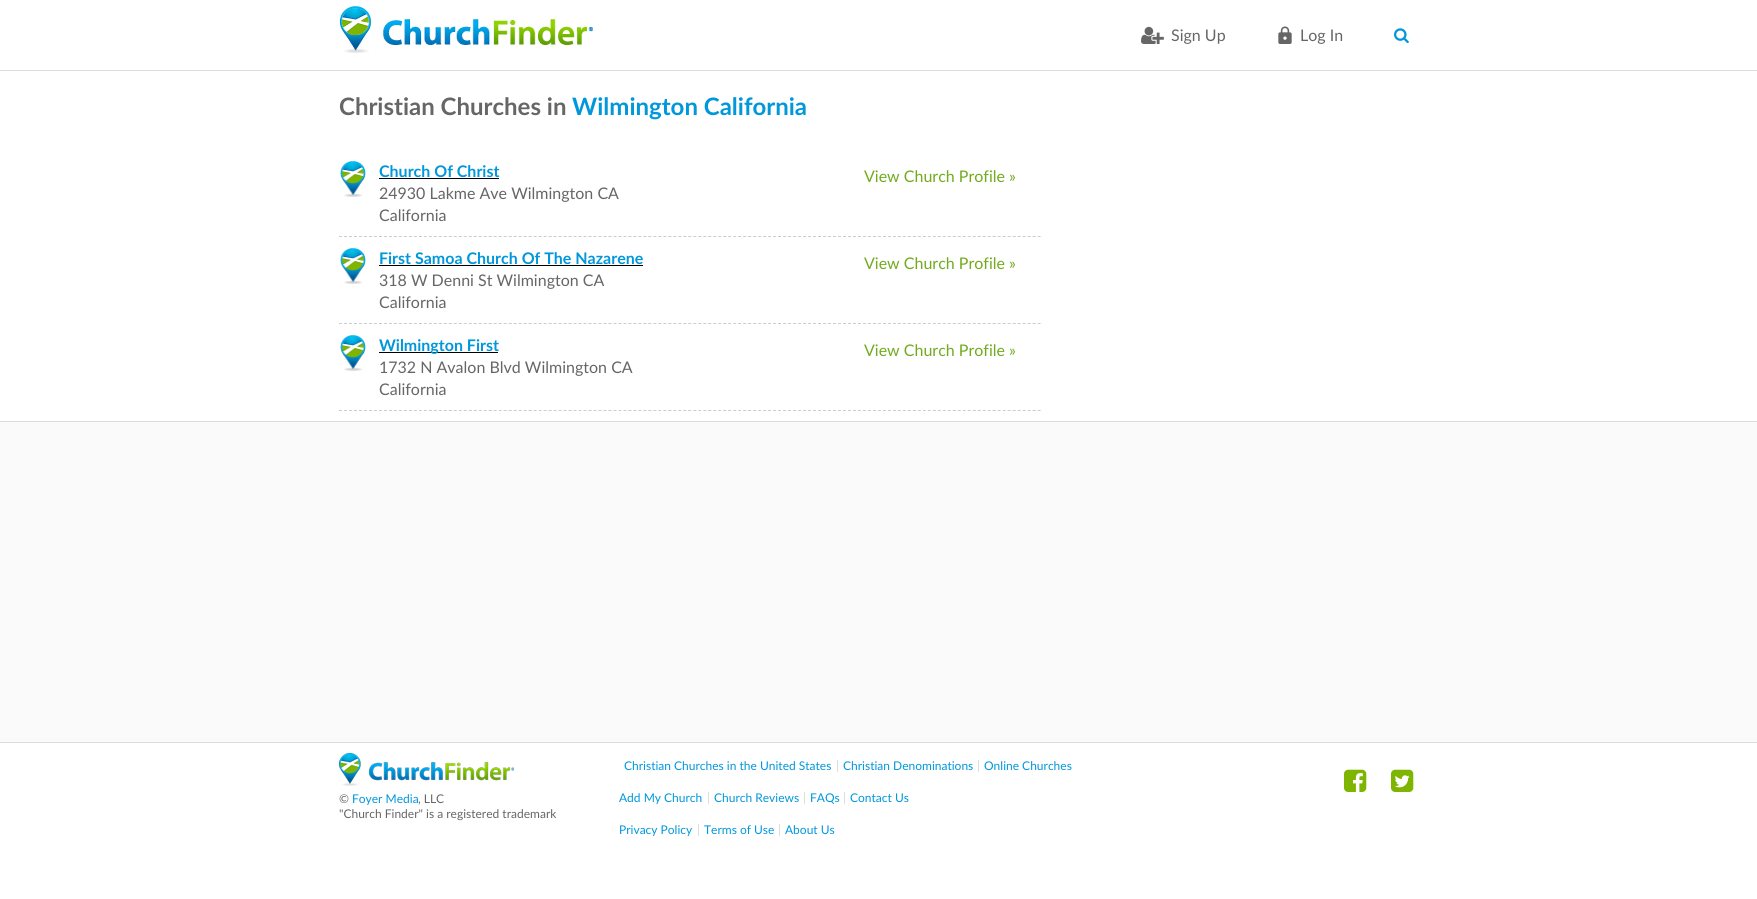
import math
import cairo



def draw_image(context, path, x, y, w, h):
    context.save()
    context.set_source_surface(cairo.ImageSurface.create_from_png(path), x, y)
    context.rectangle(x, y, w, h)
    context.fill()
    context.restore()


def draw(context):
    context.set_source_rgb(1, 1, 1)
    context.paint()
    context.set_source_rgb(221 / 255, 221 / 255, 221 / 255)
    context.rectangle(0, 70, 1757, 1)
    context.fill()
    draw_image(context, "images/1.png", 340, 6, 253, 47)
    draw_image(context, "images/2.png", 1141, 26, 23, 18)
    draw_image(context, "images/3.png", 1278, 26, 14, 18)
    draw_image(context, "images/4.png", 1394, 28, 15, 15)
    draw_image(context, "images/5.png", 340, 161, 26, 36)
    context.new_path()
    context.move_to(339, 236.5)
    context.line_to(1041, 236.5)
    context.set_source_rgb(204 / 255, 204 / 255, 204 / 255)
    context.set_line_width(1)
    context.set_dash([3, 1.99])
    context.stroke()
    context.set_source_rgb(0, 0, 0)
    context.rectangle(379, 178, 120, 1)
    context.fill()
    draw_image(context, "images/5.png", 340, 248, 26, 36)
    context.new_path()
    context.move_to(339, 323.5)
    context.line_to(1041, 323.5)
    context.set_source_rgb(204 / 255, 204 / 255, 204 / 255)
    context.stroke()
    context.set_source_rgb(0, 0, 0)
    context.rectangle(379, 265, 264, 1)
    context.fill()
    draw_image(context, "images/5.png", 340, 335, 26, 36)
    context.new_path()
    context.move_to(339, 410.5)
    context.line_to(1041, 410.5)
    context.set_source_rgb(204 / 255, 204 / 255, 204 / 255)
    context.stroke()
    context.set_source_rgb(0, 0, 0)
    context.rectangle(379, 352, 119, 1)
    context.fill()
    context.set_source_rgb(250 / 255, 250 / 255, 250 / 255)
    context.rectangle(0, 422, 1757, 320)
    context.fill()
    context.set_source_rgb(221 / 255, 221 / 255, 221 / 255)
    context.rectangle(0, 421, 1757, 1)
    context.fill()
    context.rectangle(0, 742, 1757, 1)
    context.fill()
    context.rectangle(837, 760, 1, 12)
    context.fill()
    context.rectangle(978, 760, 1, 12)
    context.fill()
    context.rectangle(708, 792, 1, 12)
    context.fill()
    context.rectangle(804, 792, 1, 12)
    context.fill()
    context.rectangle(844, 792, 1, 12)
    context.fill()
    context.rectangle(698, 824, 1, 12)
    context.fill()
    context.rectangle(779, 824, 1, 12)
    context.fill()
    draw_image(context, "images/6.png", 1344, 769, 23, 23)
    draw_image(context, "images/7.png", 1391, 769, 23, 23)
    draw_image(context, "images/8.png", 339, 753, 175, 33)
    context.select_font_face("Lato")
    context.set_font_size(16)
    context.set_source_rgb(102 / 255, 102 / 255, 102 / 255)
    context.move_to(1171, 41)
    context.show_text("Sign Up")
    context.move_to(1300, 41)
    context.show_text("Log In")
    context.select_font_face("Lato", cairo.FontSlant.NORMAL, cairo.FontWeight.BOLD)
    context.set_font_size(24)
    context.move_to(339, 115)
    context.show_text("Christian Churches in")
    context.set_source_rgb(0, 151 / 255, 219 / 255)
    context.move_to(572, 115)
    context.show_text("Wilmington California")
    context.set_font_size(16)
    context.move_to(379, 177)
    context.show_text("Church Of Christ")
    context.select_font_face("Lato")
    context.set_source_rgb(113 / 255, 171 / 255, 29 / 255)
    context.move_to(864, 182)
    context.show_text("View Church Profile »")
    context.set_source_rgb(102 / 255, 102 / 255, 102 / 255)
    context.move_to(379, 199)
    context.show_text("24930 Lakme Ave Wilmington CA")
    context.move_to(379, 221)
    context.show_text("California")
    context.select_font_face("Lato", cairo.FontSlant.NORMAL, cairo.FontWeight.BOLD)
    context.set_source_rgb(0, 151 / 255, 219 / 255)
    context.move_to(379, 264)
    context.show_text("First Samoa Church Of The Nazarene")
    context.select_font_face("Lato")
    context.set_source_rgb(113 / 255, 171 / 255, 29 / 255)
    context.move_to(864, 269)
    context.show_text("View Church Profile »")
    context.set_source_rgb(102 / 255, 102 / 255, 102 / 255)
    context.move_to(379, 286)
    context.show_text("318 W Denni St Wilmington CA")
    context.move_to(379, 308)
    context.show_text("California")
    context.select_font_face("Lato", cairo.FontSlant.NORMAL, cairo.FontWeight.BOLD)
    context.set_source_rgb(0, 151 / 255, 219 / 255)
    context.move_to(379, 351)
    context.show_text("Wilmington First")
    context.select_font_face("Lato")
    context.set_source_rgb(113 / 255, 171 / 255, 29 / 255)
    context.move_to(864, 356)
    context.show_text("View Church Profile »")
    context.set_source_rgb(102 / 255, 102 / 255, 102 / 255)
    context.move_to(379, 373)
    context.show_text("1732 N Avalon Blvd Wilmington CA")
    context.move_to(379, 395)
    context.show_text("California")
    context.set_font_size(12)
    context.set_source_rgb(0, 151 / 255, 219 / 255)
    context.move_to(624, 770)
    context.show_text("Christian Churches in the United States")
    context.move_to(843, 770)
    context.show_text("Christian Denominations")
    context.move_to(984, 770)
    context.show_text("Online Churches")
    context.move_to(619, 802)
    context.show_text("Add My Church")
    context.move_to(714, 802)
    context.show_text("Church Reviews")
    context.move_to(810, 802)
    context.show_text("FAQs")
    context.move_to(850, 802)
    context.show_text("Contact Us")
    context.move_to(619, 834)
    context.show_text("Privacy Policy")
    context.move_to(704, 834)
    context.show_text("Terms of Use")
    context.move_to(785, 834)
    context.show_text("About Us")
    context.set_source_rgb(102 / 255, 102 / 255, 102 / 255)
    context.move_to(339, 803)
    context.show_text("©")
    context.set_source_rgb(0, 151 / 255, 219 / 255)
    context.move_to(352, 803)
    context.show_text("Foyer Media")
    context.set_source_rgb(102 / 255, 102 / 255, 102 / 255)
    context.move_to(418, 803)
    context.show_text(", LLC")
    context.move_to(339, 818)
    context.show_text("\"Church Finder\" is a registered trademark")


surface = cairo.ImageSurface(cairo.Format.RGB24, 1757, 899)
context = cairo.Context(surface)
options = cairo.FontOptions()
options.set_hint_metrics(cairo.HintMetrics.OFF)
options.set_hint_style(cairo.HintStyle.NONE)
context.set_font_options(options)
context.set_miter_limit(4)
draw(context)
surface.write_to_png("out.png")
